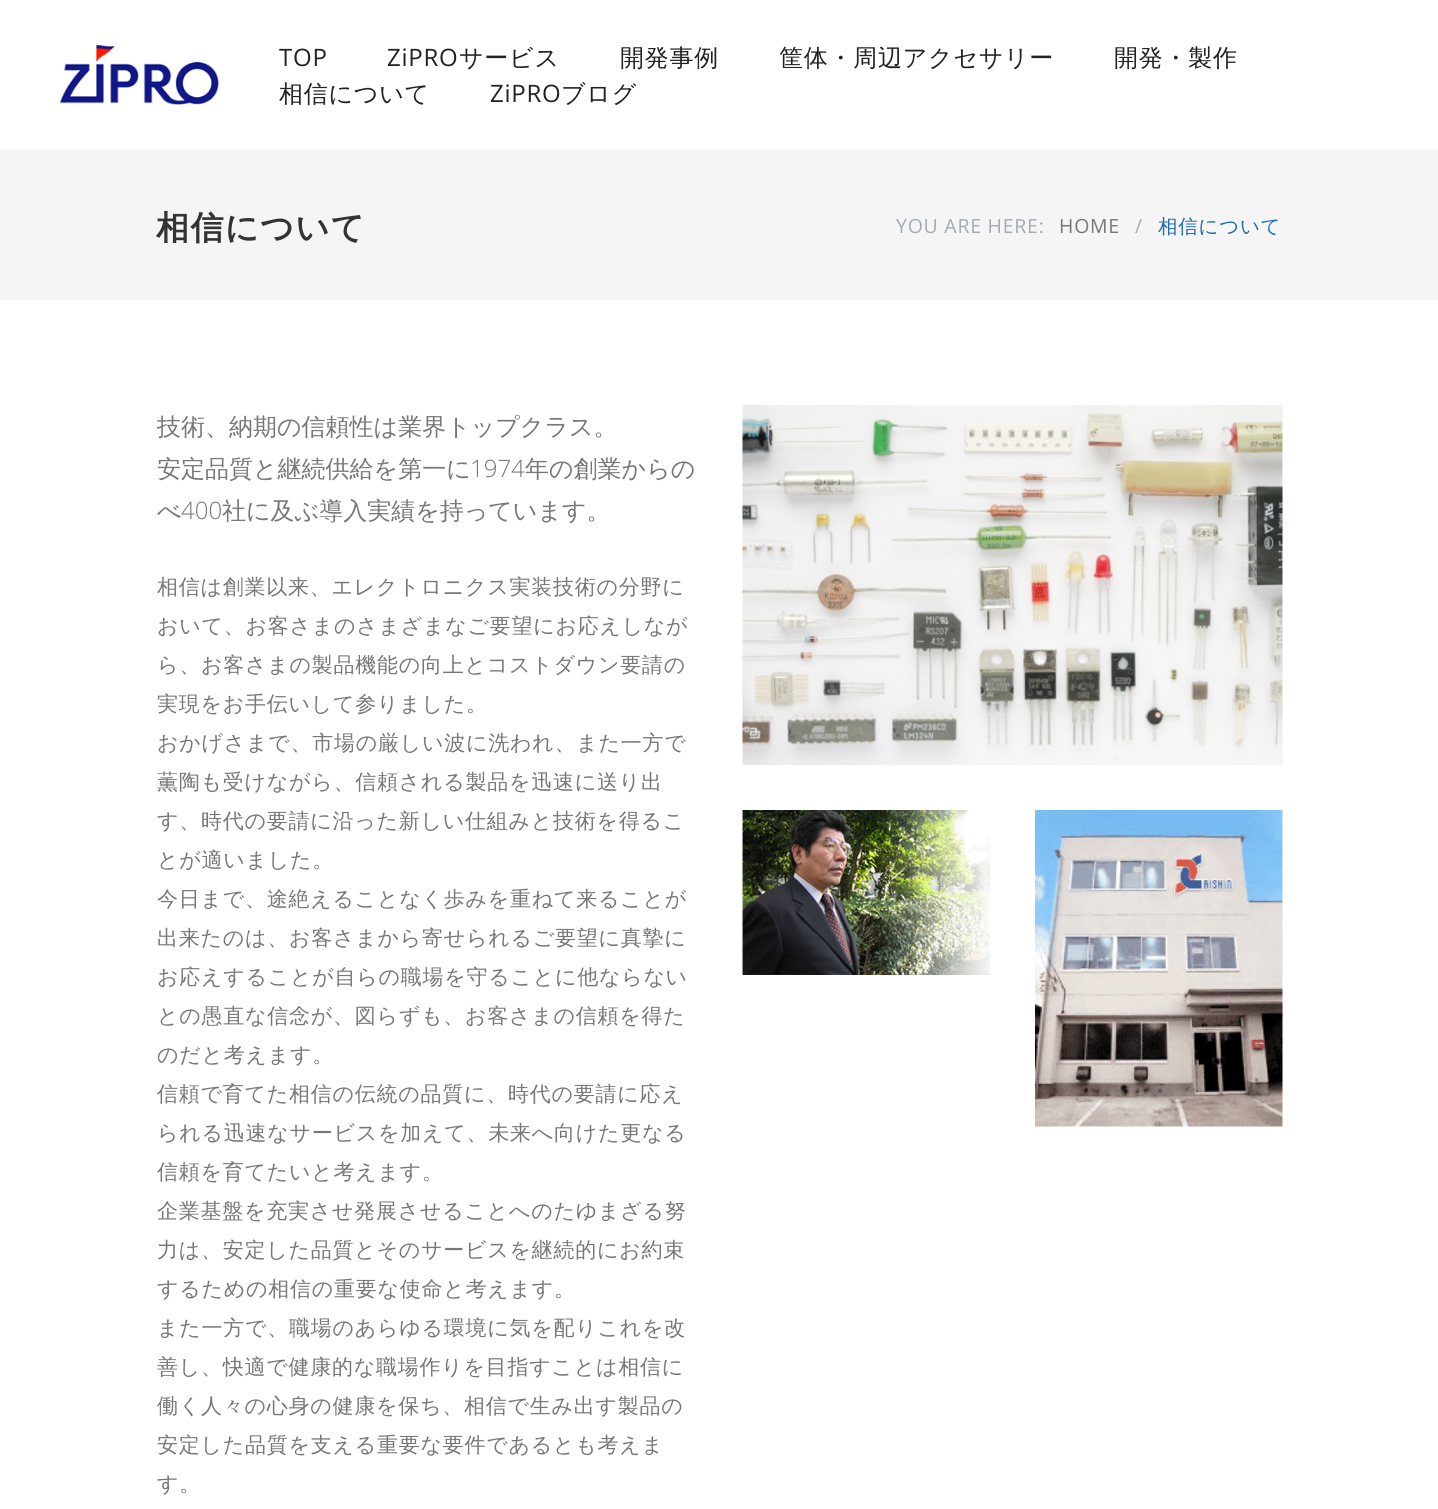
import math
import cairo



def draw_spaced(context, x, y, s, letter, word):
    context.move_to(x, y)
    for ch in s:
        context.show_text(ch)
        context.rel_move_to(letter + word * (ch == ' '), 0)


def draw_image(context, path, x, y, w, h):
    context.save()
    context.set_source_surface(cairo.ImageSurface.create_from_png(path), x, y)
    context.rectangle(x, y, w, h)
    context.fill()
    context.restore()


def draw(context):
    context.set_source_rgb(1, 1, 1)
    context.paint()
    draw_image(context, "images/1.png", 60, 45, 159, 60)
    context.set_source_rgb(245 / 255, 245 / 255, 245 / 255)
    context.rectangle(0, 150, 1438, 150)
    context.fill()
    draw_image(context, "images/2.png", 742, 405, 541, 360)
    draw_image(context, "images/3.png", 742, 810, 248, 165)
    draw_image(context, "images/4.png", 1035, 810, 248, 317)
    context.select_font_face("Open Sans")
    context.set_font_size(24)
    context.set_source_rgb(34 / 255, 34 / 255, 34 / 255)
    draw_spaced(context, 279, 66, "TOP", 0.75, 0)
    draw_spaced(context, 387, 66, "ZiPRO", 0.75, 0)
    context.select_font_face("WenQuanYi Zen Hei Medium")
    draw_spaced(context, 459, 66, "サービス", 0.75, 0)
    draw_spaced(context, 620, 66, "開発事例", 0.75, 0)
    draw_spaced(context, 779, 66, "筐体・周辺アクセサリー", 0.75, 0)
    draw_spaced(context, 1114, 66, "開発・製作", 0.75, 0)
    draw_spaced(context, 279, 102, "相信について", 0.75, 0)
    context.select_font_face("Open Sans")
    draw_spaced(context, 490, 102, "ZiPRO", 0.75, 0)
    context.select_font_face("WenQuanYi Zen Hei Medium")
    draw_spaced(context, 561, 102, "ブログ", 0.75, 0)
    context.select_font_face("WenQuanYi Zen Hei", cairo.FontSlant.NORMAL, cairo.FontWeight.BOLD)
    context.set_font_size(33)
    context.set_source_rgb(51 / 255, 51 / 255, 51 / 255)
    draw_spaced(context, 156, 239, "相信について", 1.5, 0)
    context.select_font_face("Open Sans")
    context.set_font_size(19.5)
    context.set_source_rgb(164 / 255, 170 / 255, 179 / 255)
    draw_spaced(context, 896, 233, "YOU ARE HERE:", 0.75, 0)
    context.set_source_rgb(119 / 255, 119 / 255, 119 / 255)
    draw_spaced(context, 1059, 233, "HOME", 0.75, 0)
    context.set_source_rgb(164 / 255, 170 / 255, 179 / 255)
    draw_spaced(context, 1135, 233, "/", 0.75, 0)
    context.select_font_face("WenQuanYi Zen Hei Medium")
    context.set_source_rgb(30 / 255, 105 / 255, 184 / 255)
    draw_spaced(context, 1158, 233, "相信について", 0.75, 0)
    context.set_font_size(24)
    context.set_source_rgb(119 / 255, 119 / 255, 119 / 255)
    context.move_to(157, 435)
    context.show_text("技術、納期の信頼性は業界トップクラス。")
    context.move_to(157, 477)
    context.show_text("安定品質と継続供給を第一に")
    context.select_font_face("Open Sans Light")
    context.move_to(470, 477)
    context.show_text("1974")
    context.select_font_face("WenQuanYi Zen Hei Medium")
    context.move_to(525, 477)
    context.show_text("年の創業からの")
    context.move_to(157, 519)
    context.show_text("べ")
    context.select_font_face("Open Sans Light")
    context.move_to(181, 519)
    context.show_text("400")
    context.select_font_face("WenQuanYi Zen Hei Medium")
    context.move_to(222, 519)
    context.show_text("社に及ぶ導入実績を持っています。")
    context.set_font_size(21)
    draw_spaced(context, 157, 594, "相信は創業以来、エレクトロニクス実装技術の分野に", 0.75, 0)
    draw_spaced(context, 157, 633, "おいて、お客さまのさまざまなご要望にお応えしなが", 0.75, 0)
    draw_spaced(context, 157, 672, "ら、お客さまの製品機能の向上とコストダウン要請の", 0.75, 0)
    draw_spaced(context, 157, 711, "実現をお手伝いして参りました。", 0.75, 0)
    draw_spaced(context, 157, 750, "おかげさまで、市場の厳しい波に洗われ、また一方で", 0.75, 0)
    draw_spaced(context, 157, 789, "薫陶も受けながら、信頼される製品を迅速に送り出", 0.75, 0)
    draw_spaced(context, 157, 828, "す、時代の要請に沿った新しい仕組みと技術を得るこ", 0.75, 0)
    draw_spaced(context, 157, 867, "とが適いました。", 0.75, 0)
    draw_spaced(context, 157, 906, "今日まで、途絶えることなく歩みを重ねて来ることが", 0.75, 0)
    draw_spaced(context, 157, 945, "出来たのは、お客さまから寄せられるご要望に真摯に", 0.75, 0)
    draw_spaced(context, 157, 984, "お応えすることが自らの職場を守ることに他ならない", 0.75, 0)
    draw_spaced(context, 157, 1023, "との愚直な信念が、図らずも、お客さまの信頼を得た", 0.75, 0)
    draw_spaced(context, 157, 1062, "のだと考えます。", 0.75, 0)
    draw_spaced(context, 157, 1101, "信頼で育てた相信の伝統の品質に、時代の要請に応え", 0.75, 0)
    draw_spaced(context, 157, 1140, "られる迅速なサービスを加えて、未来へ向けた更なる", 0.75, 0)
    draw_spaced(context, 157, 1179, "信頼を育てたいと考えます。", 0.75, 0)
    draw_spaced(context, 157, 1218, "企業基盤を充実させ発展させることへのたゆまざる努", 0.75, 0)
    draw_spaced(context, 157, 1257, "力は、安定した品質とそのサービスを継続的にお約束", 0.75, 0)
    draw_spaced(context, 157, 1296, "するための相信の重要な使命と考えます。", 0.75, 0)
    draw_spaced(context, 157, 1335, "また一方で、職場のあらゆる環境に気を配りこれを改", 0.75, 0)
    draw_spaced(context, 157, 1374, "善し、快適で健康的な職場作りを目指すことは相信に", 0.75, 0)
    draw_spaced(context, 157, 1413, "働く人々の心身の健康を保ち、相信で生み出す製品の", 0.75, 0)
    draw_spaced(context, 157, 1452, "安定した品質を支える重要な要件であるとも考えま", 0.75, 0)
    draw_spaced(context, 157, 1491, "す。", 0.75, 0)


surface = cairo.ImageSurface(cairo.Format.RGB24, 1438, 1509)
context = cairo.Context(surface)
options = cairo.FontOptions()
options.set_hint_metrics(cairo.HintMetrics.OFF)
options.set_hint_style(cairo.HintStyle.NONE)
context.set_font_options(options)
context.set_miter_limit(4)
draw(context)
surface.write_to_png("out.png")
